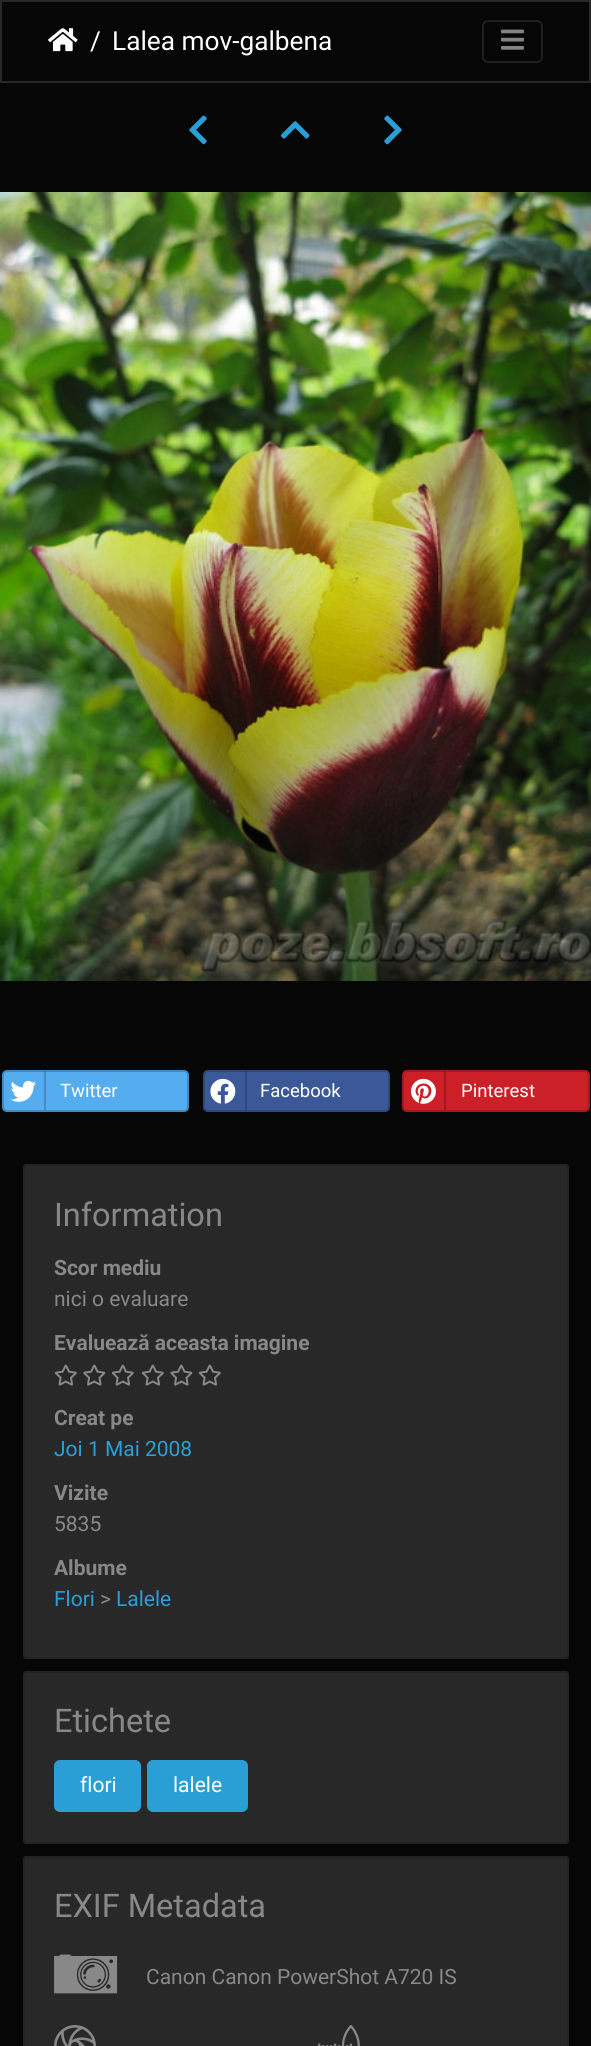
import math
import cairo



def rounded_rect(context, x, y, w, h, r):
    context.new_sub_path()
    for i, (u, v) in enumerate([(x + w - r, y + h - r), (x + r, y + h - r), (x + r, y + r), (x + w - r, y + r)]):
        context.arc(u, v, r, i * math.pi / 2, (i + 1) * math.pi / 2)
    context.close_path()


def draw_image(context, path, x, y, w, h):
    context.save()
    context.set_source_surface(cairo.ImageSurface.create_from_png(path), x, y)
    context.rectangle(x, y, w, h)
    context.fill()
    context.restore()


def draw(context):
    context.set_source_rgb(6 / 255, 6 / 255, 6 / 255)
    context.paint()
    context.rectangle(1, 1, 589, 81)
    context.set_source_rgb(40 / 255, 40 / 255, 40 / 255)
    context.stroke()
    draw_image(context, "images/1.png", 48, 28, 30, 24)
    rounded_rect(context, 483, 21, 59, 41, 5)
    context.set_source_rgb(31 / 255, 31 / 255, 31 / 255)
    context.stroke()
    draw_image(context, "images/2.png", 501, 29, 23, 21)
    draw_image(context, "images/3.png", 189, 115, 18, 30)
    draw_image(context, "images/4.png", 280, 121, 30, 18)
    draw_image(context, "images/5.png", 384, 115, 18, 30)
    draw_image(context, "images/6.png", 0, 192, 591, 789)
    context.set_source_rgb(85 / 255, 172 / 255, 238 / 255)
    rounded_rect(context, 2, 1070, 187, 42, 5)
    context.fill()
    rounded_rect(context, 3, 1071, 185, 40, 4)
    context.set_source_rgba(0, 0, 0, 0.2)
    context.stroke()
    context.rectangle(44, 1071, 2, 39)
    context.fill()
    draw_image(context, "images/7.png", 10, 1080, 26, 22)
    context.set_source_rgb(59 / 255, 89 / 255, 152 / 255)
    rounded_rect(context, 203, 1070, 187, 42, 5)
    context.fill()
    rounded_rect(context, 204, 1071, 185, 40, 4)
    context.set_source_rgba(0, 0, 0, 0.2)
    context.stroke()
    context.rectangle(245, 1071, 2, 39)
    context.fill()
    draw_image(context, "images/8.png", 210, 1078, 26, 26)
    context.set_source_rgb(203 / 255, 32 / 255, 39 / 255)
    rounded_rect(context, 402, 1070, 188, 42, 5)
    context.fill()
    rounded_rect(context, 403, 1071, 186, 40, 4)
    context.set_source_rgba(0, 0, 0, 0.2)
    context.stroke()
    context.rectangle(444, 1071, 2, 39)
    context.fill()
    draw_image(context, "images/9.png", 411, 1078, 25, 26)
    context.set_source_rgb(40 / 255, 40 / 255, 40 / 255)
    rounded_rect(context, 23, 1164, 546, 495, 3)
    context.fill()
    rounded_rect(context, 24, 1165, 544, 493, 2)
    context.set_source_rgba(0, 0, 0, 0.12)
    context.stroke()
    draw_image(context, "images/10.png", 54, 1364, 23, 22)
    draw_image(context, "images/11.png", 83, 1364, 23, 22)
    draw_image(context, "images/10.png", 111, 1364, 23, 22)
    draw_image(context, "images/10.png", 141, 1364, 23, 22)
    draw_image(context, "images/11.png", 170, 1364, 23, 22)
    draw_image(context, "images/10.png", 198, 1364, 23, 22)
    context.set_source_rgb(40 / 255, 40 / 255, 40 / 255)
    rounded_rect(context, 23, 1671, 546, 173, 3)
    context.fill()
    rounded_rect(context, 24, 1672, 544, 171, 2)
    context.set_source_rgba(0, 0, 0, 0.12)
    context.stroke()
    context.set_source_rgb(42 / 255, 159 / 255, 214 / 255)
    rounded_rect(context, 55, 1761, 85, 50, 5)
    context.fill_preserve()
    context.stroke()
    rounded_rect(context, 148, 1761, 99, 50, 5)
    context.fill_preserve()
    context.stroke()
    context.set_source_rgb(40 / 255, 40 / 255, 40 / 255)
    rounded_rect(context, 23, 1856, 546, 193, 3)
    context.fill()
    rounded_rect(context, 24, 1857, 544, 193, 2)
    context.set_source_rgba(0, 0, 0, 0.12)
    context.stroke()
    draw_image(context, "images/12.png", 54, 1954, 64, 40)
    draw_image(context, "images/13.png", 54, 2025, 42, 21)
    draw_image(context, "images/14.png", 318, 2025, 42, 21)
    context.select_font_face("Roboto")
    context.set_font_size(26.25)
    context.set_source_rgb(1, 1, 1)
    context.move_to(90, 50)
    context.show_text("/")
    context.move_to(112, 50)
    context.show_text("Lalea mov-galbena")
    context.set_font_size(18.5)
    context.move_to(60, 1097)
    context.show_text("Twitter")
    context.move_to(260, 1097)
    context.show_text("Facebook")
    context.move_to(461, 1097)
    context.show_text("Pinterest")
    context.set_font_size(32.5)
    context.set_source_rgb(136 / 255, 136 / 255, 136 / 255)
    context.move_to(54, 1226)
    context.show_text("Information")
    context.select_font_face("Roboto", cairo.FontSlant.NORMAL, cairo.FontWeight.BOLD)
    context.set_font_size(21)
    context.move_to(54, 1275)
    context.show_text("Scor mediu")
    context.select_font_face("Roboto")
    context.move_to(54, 1306)
    context.show_text("nici o evaluare")
    context.select_font_face("Roboto", cairo.FontSlant.NORMAL, cairo.FontWeight.BOLD)
    context.move_to(54, 1350)
    context.show_text("Evaluează aceasta imagine")
    context.move_to(54, 1425)
    context.show_text("Creat pe")
    context.select_font_face("Roboto")
    context.set_source_rgb(42 / 255, 159 / 255, 214 / 255)
    context.move_to(54, 1456)
    context.show_text("Joi 1 Mai 2008")
    context.select_font_face("Roboto", cairo.FontSlant.NORMAL, cairo.FontWeight.BOLD)
    context.set_source_rgb(136 / 255, 136 / 255, 136 / 255)
    context.move_to(54, 1500)
    context.show_text("Vizite")
    context.select_font_face("Roboto")
    context.move_to(54, 1531)
    context.show_text("5835")
    context.select_font_face("Roboto", cairo.FontSlant.NORMAL, cairo.FontWeight.BOLD)
    context.move_to(54, 1575)
    context.show_text("Albume")
    context.select_font_face("Roboto")
    context.set_source_rgb(42 / 255, 159 / 255, 214 / 255)
    context.move_to(54, 1606)
    context.show_text("Flori")
    context.set_source_rgb(136 / 255, 136 / 255, 136 / 255)
    context.move_to(100, 1606)
    context.show_text(">")
    context.set_source_rgb(42 / 255, 159 / 255, 214 / 255)
    context.move_to(116, 1606)
    context.show_text("Lalele")
    context.set_font_size(32.5)
    context.set_source_rgb(136 / 255, 136 / 255, 136 / 255)
    context.move_to(54, 1732)
    context.show_text("Etichete")
    context.set_font_size(21)
    context.set_source_rgb(1, 1, 1)
    context.move_to(80, 1792)
    context.show_text("flori")
    context.move_to(173, 1792)
    context.show_text("lalele")
    context.set_font_size(32.5)
    context.set_source_rgb(136 / 255, 136 / 255, 136 / 255)
    context.move_to(54, 1917)
    context.show_text("EXIF Metadata")
    context.set_font_size(21)
    context.move_to(146, 1984)
    context.show_text("Canon Canon PowerShot A720 IS")


surface = cairo.ImageSurface(cairo.Format.RGB24, 591, 2046)
context = cairo.Context(surface)
options = cairo.FontOptions()
options.set_hint_metrics(cairo.HintMetrics.OFF)
options.set_hint_style(cairo.HintStyle.NONE)
context.set_font_options(options)
context.set_miter_limit(4)
draw(context)
surface.write_to_png("out.png")
